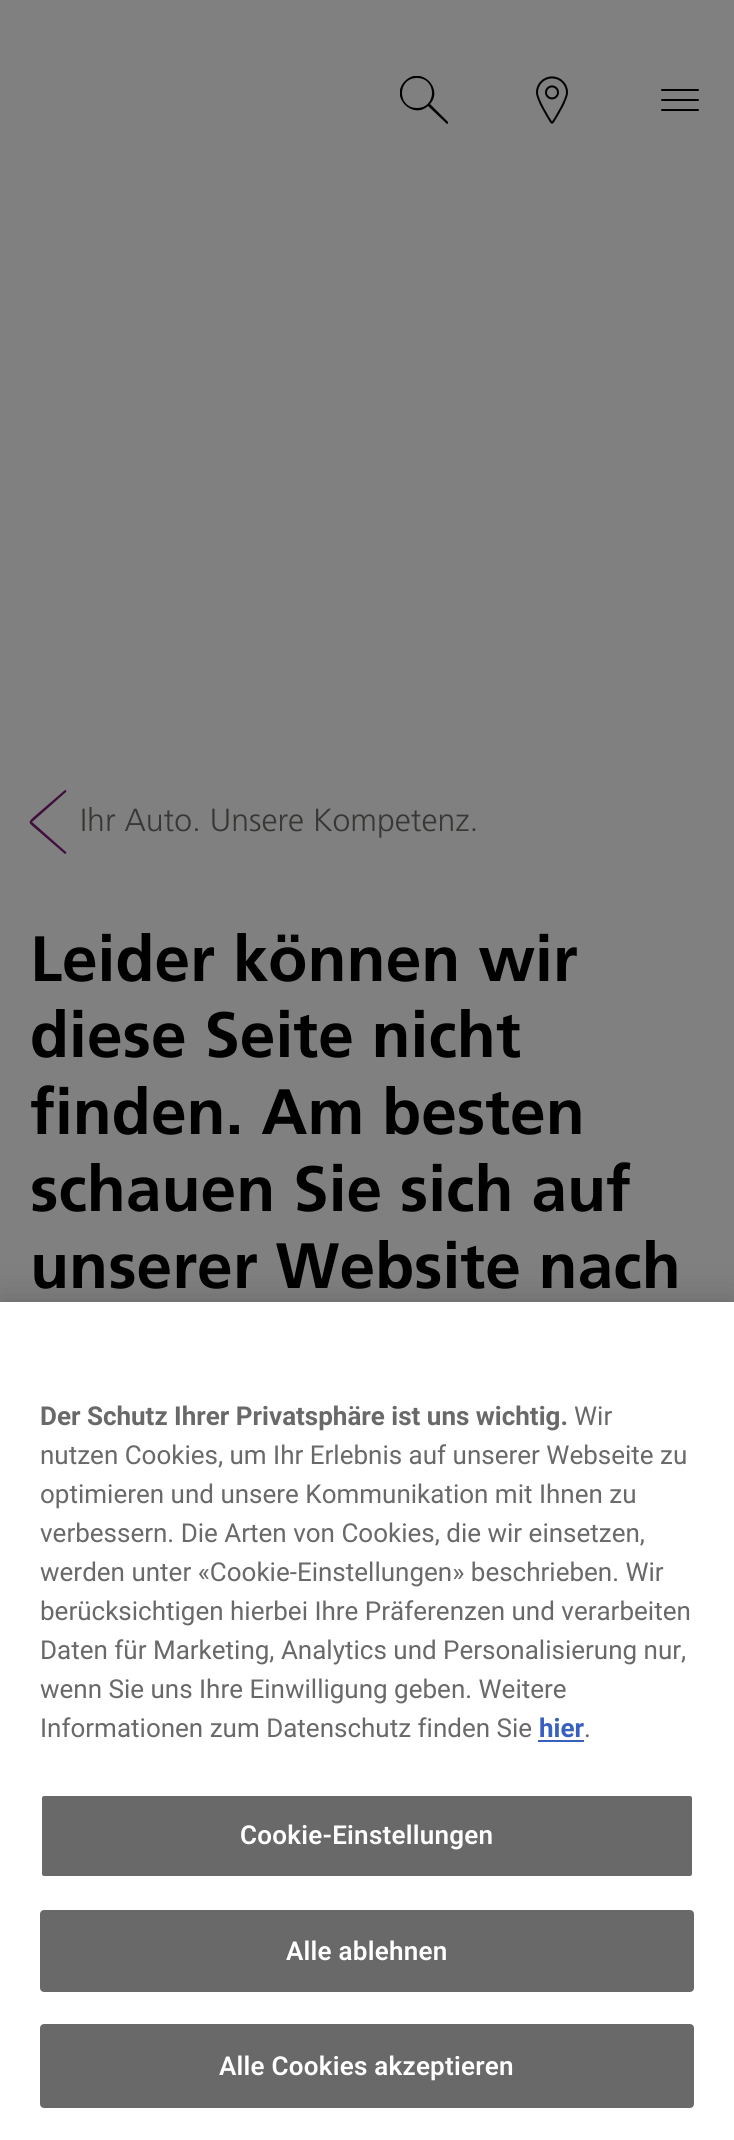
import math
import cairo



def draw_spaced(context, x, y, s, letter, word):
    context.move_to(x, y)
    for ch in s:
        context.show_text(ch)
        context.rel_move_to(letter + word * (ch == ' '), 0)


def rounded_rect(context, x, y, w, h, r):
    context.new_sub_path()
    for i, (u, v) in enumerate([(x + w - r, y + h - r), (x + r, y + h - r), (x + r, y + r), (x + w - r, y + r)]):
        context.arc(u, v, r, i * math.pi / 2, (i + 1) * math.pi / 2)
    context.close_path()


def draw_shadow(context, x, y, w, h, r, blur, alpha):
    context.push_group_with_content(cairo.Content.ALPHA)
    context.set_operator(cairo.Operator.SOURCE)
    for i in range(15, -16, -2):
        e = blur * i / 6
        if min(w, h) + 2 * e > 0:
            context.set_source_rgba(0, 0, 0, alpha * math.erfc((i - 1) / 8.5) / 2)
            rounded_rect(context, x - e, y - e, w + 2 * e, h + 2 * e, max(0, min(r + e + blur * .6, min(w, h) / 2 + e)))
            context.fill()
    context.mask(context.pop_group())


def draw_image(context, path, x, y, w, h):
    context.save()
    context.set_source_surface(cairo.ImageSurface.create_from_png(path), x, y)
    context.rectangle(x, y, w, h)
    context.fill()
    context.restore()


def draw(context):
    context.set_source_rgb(128 / 255, 128 / 255, 128 / 255)
    context.paint()
    context.save()
    context.rectangle(400, 76, 48, 48)
    context.clip()
    context.set_source_rgb(0, 0, 0)
    context.new_path()
    context.move_to(447, 124)
    context.line_to(428, 106)
    context.curve_to(413, 120, 389, 97, 405, 81)
    context.curve_to(421, 65, 444, 89, 430, 104)
    context.line_to(448, 122)
    context.curve_to(448, 123, 448, 124, 447, 124)
    context.close_path()
    context.move_to(417, 78)
    context.curve_to(397, 78, 397, 108, 417, 108)
    context.curve_to(437, 108, 437, 78, 417, 78)
    context.close_path()
    context.fill()
    context.restore()
    draw_image(context, "images/1.png", 536, 76, 32, 48)
    draw_image(context, "images/2.png", 661, 89, 38, 22)
    context.set_source_rgb(64 / 255, 13 / 255, 60 / 255)
    context.new_path()
    context.move_to(65, 854)
    context.line_to(36, 829)
    context.curve_to(28, 822, 27, 823, 36, 815)
    context.line_to(65, 790)
    context.curve_to(66, 790, 67, 791, 66, 792)
    context.line_to(32, 822)
    context.line_to(66, 852)
    context.curve_to(67, 852, 66, 854, 65, 854)
    context.close_path()
    context.fill()
    context.set_source_rgb(0, 0, 0)
    draw_shadow(context, 0, 1302, 734, 838, 0, 18, 0.2)
    context.set_source_rgb(1, 1, 1)
    context.rectangle(0, 1302, 734, 838)
    context.fill()
    context.set_source_rgb(56 / 255, 96 / 255, 190 / 255)
    context.rectangle(538, 1740, 46, 2)
    context.fill()
    context.set_source_rgb(105 / 255, 105 / 255, 105 / 255)
    rounded_rect(context, 41, 1795, 652, 82, 3)
    context.fill_preserve()
    context.set_source_rgb(1, 1, 1)
    context.stroke()
    context.set_source_rgb(105 / 255, 105 / 255, 105 / 255)
    rounded_rect(context, 41, 1911, 652, 80, 3)
    context.fill_preserve()
    context.stroke()
    rounded_rect(context, 41, 2025, 652, 82, 3)
    context.fill_preserve()
    context.stroke()
    context.select_font_face("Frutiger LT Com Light")
    context.set_font_size(32)
    context.set_source_rgb(56 / 255, 55 / 255, 53 / 255)
    context.move_to(80, 831)
    context.show_text("Ihr Auto. Unsere Kompetenz.")
    context.select_font_face("Frutiger LT Com", cairo.FontSlant.NORMAL, cairo.FontWeight.BOLD)
    context.set_font_size(64)
    context.set_source_rgb(0, 0, 0)
    context.move_to(30, 981)
    context.show_text("Leider können wir")
    context.move_to(30, 1057)
    context.show_text("diese Seite nicht")
    context.move_to(30, 1134)
    context.show_text("finden. Am besten")
    context.move_to(30, 1211)
    context.show_text("schauen Sie sich auf")
    context.move_to(30, 1288)
    context.show_text("unserer Website nach")
    context.select_font_face("Roboto", cairo.FontSlant.NORMAL, cairo.FontWeight.BOLD)
    context.set_font_size(26)
    context.set_source_rgb(105 / 255, 105 / 255, 105 / 255)
    context.move_to(40, 1425)
    context.show_text("Der Schutz Ihrer Privatsphäre ist uns wichtig.")
    context.select_font_face("Roboto")
    context.move_to(574, 1425)
    context.show_text("Wir")
    context.move_to(40, 1464)
    context.show_text("nutzen Cookies, um Ihr Erlebnis auf unserer Webseite zu")
    context.move_to(40, 1503)
    context.show_text("optimieren und unsere Kommunikation mit Ihnen zu")
    context.move_to(40, 1542)
    context.show_text("verbessern. Die Arten von Cookies, die wir einsetzen,")
    context.move_to(40, 1581)
    context.show_text("werden unter «Cookie-Einstellungen» beschrieben. Wir")
    context.move_to(40, 1620)
    context.show_text("berücksichtigen hierbei Ihre Präferenzen und verarbeiten")
    context.move_to(40, 1659)
    context.show_text("Daten für Marketing, Analytics und Personalisierung nur,")
    context.move_to(40, 1698)
    context.show_text("wenn Sie uns Ihre Einwilligung geben. Weitere")
    context.move_to(40, 1737)
    context.show_text("Informationen zum Datenschutz finden Sie")
    context.select_font_face("Roboto", cairo.FontSlant.NORMAL, cairo.FontWeight.BOLD)
    context.set_source_rgb(56 / 255, 96 / 255, 190 / 255)
    context.move_to(539, 1737)
    context.show_text("hier")
    context.select_font_face("Roboto")
    context.set_source_rgb(105 / 255, 105 / 255, 105 / 255)
    context.move_to(584, 1737)
    context.show_text(".")
    context.select_font_face("Roboto SemiBold")
    context.set_source_rgb(1, 1, 1)
    draw_spaced(context, 240, 1844, "Cookie-Einstellungen", 0.25, 0)
    draw_spaced(context, 286, 1960, "Alle ablehnen", 0.25, 0)
    draw_spaced(context, 219, 2075, "Alle Cookies akzeptieren", 0.25, 0)


surface = cairo.ImageSurface(cairo.Format.RGB24, 734, 2140)
context = cairo.Context(surface)
options = cairo.FontOptions()
options.set_hint_metrics(cairo.HintMetrics.OFF)
options.set_hint_style(cairo.HintStyle.NONE)
context.set_font_options(options)
context.set_miter_limit(4)
draw(context)
surface.write_to_png("out.png")
